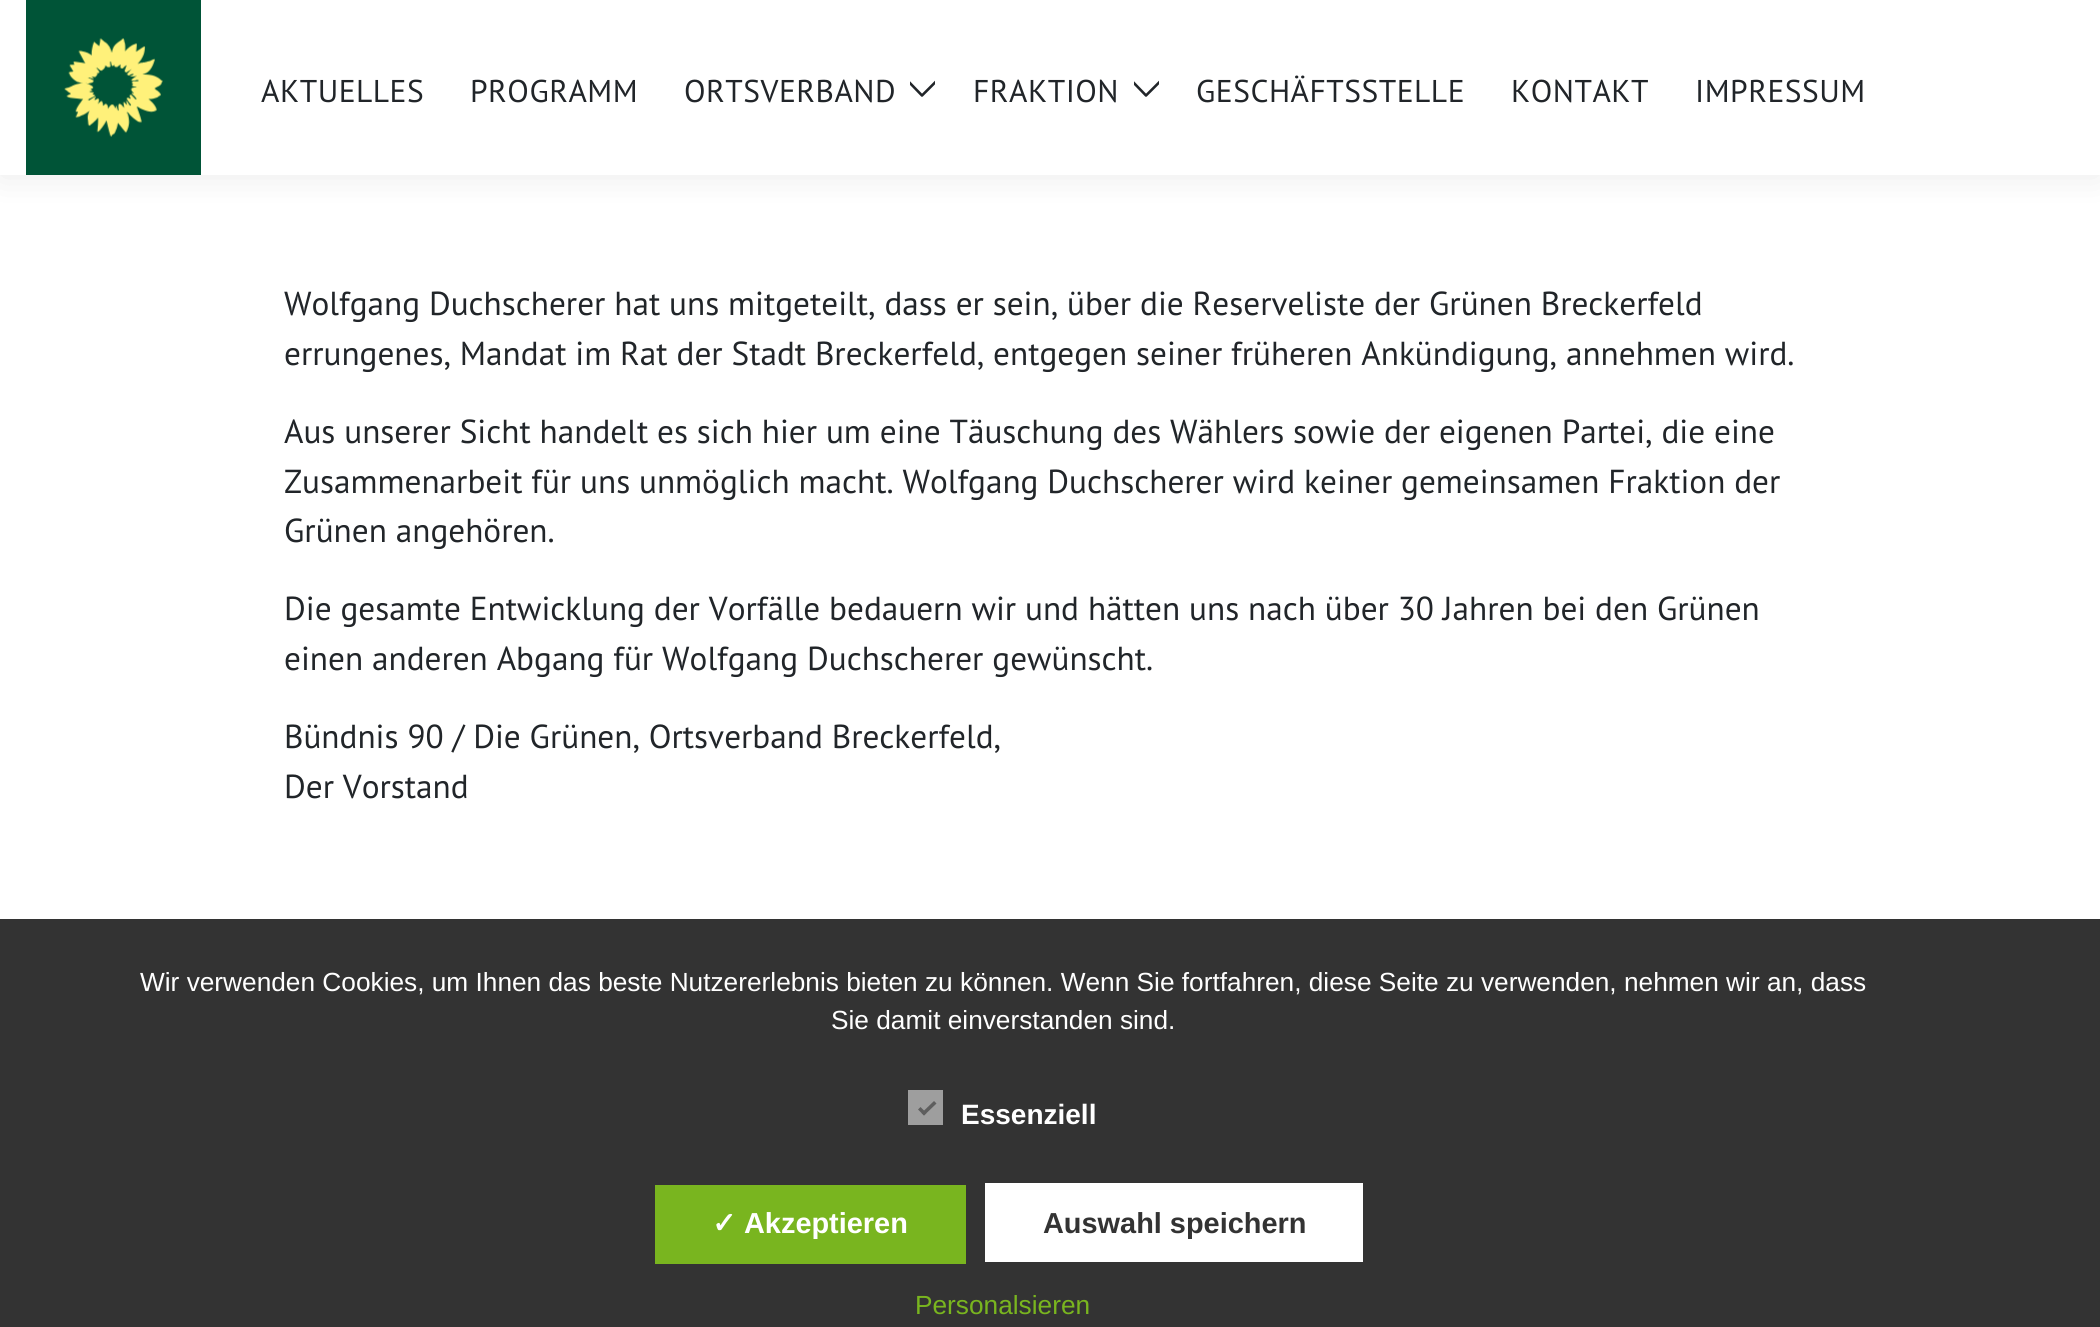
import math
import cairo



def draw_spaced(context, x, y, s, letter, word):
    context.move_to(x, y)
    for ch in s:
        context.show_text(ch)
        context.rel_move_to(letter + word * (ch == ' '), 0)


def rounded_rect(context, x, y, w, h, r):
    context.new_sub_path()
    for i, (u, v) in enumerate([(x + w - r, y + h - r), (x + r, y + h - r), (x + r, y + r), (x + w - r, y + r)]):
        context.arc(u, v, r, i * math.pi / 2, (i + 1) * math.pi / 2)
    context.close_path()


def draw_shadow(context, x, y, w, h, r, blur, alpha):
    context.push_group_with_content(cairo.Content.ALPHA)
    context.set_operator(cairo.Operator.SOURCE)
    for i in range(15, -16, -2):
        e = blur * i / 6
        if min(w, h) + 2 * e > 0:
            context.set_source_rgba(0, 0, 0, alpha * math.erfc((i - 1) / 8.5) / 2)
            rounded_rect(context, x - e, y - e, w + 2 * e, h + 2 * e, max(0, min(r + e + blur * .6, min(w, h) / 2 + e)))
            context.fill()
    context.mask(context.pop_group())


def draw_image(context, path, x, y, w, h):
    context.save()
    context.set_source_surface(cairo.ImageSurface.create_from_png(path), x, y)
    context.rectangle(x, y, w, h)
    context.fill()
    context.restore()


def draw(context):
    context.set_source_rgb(1, 1, 1)
    context.paint()
    context.set_source_rgb(0, 0, 0)
    draw_shadow(context, 0, 2, 2100, 175, 0, 17.5, 0.08)
    context.set_source_rgb(1, 1, 1)
    context.rectangle(0, 0, 2100, 175)
    context.fill()
    context.set_source_rgb(0, 84 / 255, 55 / 255)
    context.rectangle(26, 0, 175, 175)
    context.fill()
    draw_image(context, "images/1.png", 64, 38, 99, 99)
    context.save()
    context.rectangle(910, 67, 25, 42)
    context.clip()
    context.new_path()
    context.move_to(906.5, 79.5)
    context.line_to(922, 95.5)
    context.line_to(938, 79.5)
    context.set_source_rgb(33 / 255, 37 / 255, 41 / 255)
    context.set_line_width(2.6)
    context.set_line_cap(cairo.LineCap.ROUND)
    context.set_line_join(cairo.LineJoin.ROUND)
    context.stroke()
    context.restore()
    context.save()
    context.rectangle(1134, 67, 25, 42)
    context.clip()
    context.new_path()
    context.move_to(1130.5, 79.5)
    context.line_to(1146, 95.5)
    context.line_to(1162, 79.5)
    context.set_source_rgb(33 / 255, 37 / 255, 41 / 255)
    context.set_line_width(2.6)
    context.set_line_cap(cairo.LineCap.ROUND)
    context.set_line_join(cairo.LineJoin.ROUND)
    context.stroke()
    context.restore()
    context.set_source_rgb(51 / 255, 51 / 255, 51 / 255)
    context.rectangle(0, 919, 2100, 408)
    context.fill()
    context.set_source_rgb(158 / 255, 158 / 255, 158 / 255)
    context.rectangle(908, 1090, 35, 35)
    context.fill()
    context.set_source_rgb(94 / 255, 94 / 255, 94 / 255)
    context.new_path()
    context.move_to(934, 1101)
    context.line_to(936.5, 1103.5)
    context.line_to(924, 1115.5)
    context.line_to(921.5, 1113)
    context.close_path()
    context.fill()
    context.new_path()
    context.move_to(920.5, 1107)
    context.line_to(926.5, 1113)
    context.line_to(924, 1115.5)
    context.line_to(918, 1109.5)
    context.close_path()
    context.fill()
    context.set_source_rgb(121 / 255, 181 / 255, 31 / 255)
    context.rectangle(655, 1185, 311, 79)
    context.fill()
    context.set_source_rgb(1, 1, 1)
    context.rectangle(985, 1183, 378, 79)
    context.fill()
    context.select_font_face("PT Sans")
    context.set_font_size(31.5)
    context.set_source_rgb(33 / 255, 37 / 255, 41 / 255)
    draw_spaced(context, 261, 102, "AKTUELLES", 0.5, 0)
    draw_spaced(context, 470, 102, "PROGRAMM", 0.5, 0)
    draw_spaced(context, 684, 102, "ORTSVERBAND", 0.5, 0)
    draw_spaced(context, 973, 102, "FRAKTION", 0.5, 0)
    draw_spaced(context, 1196, 102, "GESCHÄFTSSTELLE", 0.5, 0)
    draw_spaced(context, 1511, 102, "KONTAKT", 0.5, 0)
    draw_spaced(context, 1695, 102, "IMPRESSUM", 0.5, 0)
    context.set_font_size(33.25)
    context.move_to(284, 315)
    context.show_text("Wolfgang Duchscherer hat uns mitgeteilt, dass er sein, über die Reserveliste der Grünen Breckerfeld")
    context.move_to(284, 365)
    context.show_text("errungenes, Mandat im Rat der Stadt Breckerfeld, entgegen seiner früheren Ankündigung, annehmen wird.")
    context.move_to(284, 443)
    context.show_text("Aus unserer Sicht handelt es sich hier um eine Täuschung des Wählers sowie der eigenen Partei, die eine")
    context.move_to(284, 493)
    context.show_text("Zusammenarbeit für uns unmöglich macht. Wolfgang Duchscherer wird keiner gemeinsamen Fraktion der")
    context.move_to(284, 542)
    context.show_text("Grünen angehören.")
    context.move_to(284, 620)
    context.show_text("Die gesamte Entwicklung der Vorfälle bedauern wir und hätten uns nach über 30 Jahren bei den Grünen")
    context.move_to(284, 670)
    context.show_text("einen anderen Abgang für Wolfgang Duchscherer gewünscht.")
    context.move_to(284, 748)
    context.show_text("Bündnis 90 / Die Grünen, Ortsverband Breckerfeld,")
    context.move_to(284, 798)
    context.show_text("Der Vorstand")
    context.select_font_face("Liberation Sans")
    context.set_font_size(26.25)
    context.set_source_rgb(1, 1, 1)
    context.move_to(140, 991)
    context.show_text("Wir verwenden Cookies, um Ihnen das beste Nutzererlebnis bieten zu können. Wenn Sie fortfahren, diese Seite zu verwenden, nehmen wir an, dass")
    context.move_to(831, 1029)
    context.show_text("Sie damit einverstanden sind.")
    context.select_font_face("Liberation Sans", cairo.FontSlant.NORMAL, cairo.FontWeight.BOLD)
    context.set_font_size(28)
    context.move_to(961, 1124)
    context.show_text("Essenziell")
    context.select_font_face("DejaVu Sans", cairo.FontSlant.NORMAL, cairo.FontWeight.BOLD)
    context.set_font_size(28.9)
    context.move_to(712, 1233)
    context.show_text("✓")
    context.select_font_face("Liberation Sans", cairo.FontSlant.NORMAL, cairo.FontWeight.BOLD)
    context.move_to(744, 1233)
    context.show_text("Akzeptieren")
    context.set_source_rgb(51 / 255, 51 / 255, 51 / 255)
    context.move_to(1043, 1233)
    context.show_text("Auswahl speichern")
    context.select_font_face("Liberation Sans")
    context.set_font_size(26.25)
    context.set_source_rgb(121 / 255, 181 / 255, 31 / 255)
    context.move_to(915, 1314)
    context.show_text("Personalsieren")


surface = cairo.ImageSurface(cairo.Format.RGB24, 2100, 1327)
context = cairo.Context(surface)
options = cairo.FontOptions()
options.set_hint_metrics(cairo.HintMetrics.OFF)
options.set_hint_style(cairo.HintStyle.NONE)
context.set_font_options(options)
context.set_miter_limit(4)
draw(context)
surface.write_to_png("out.png")
